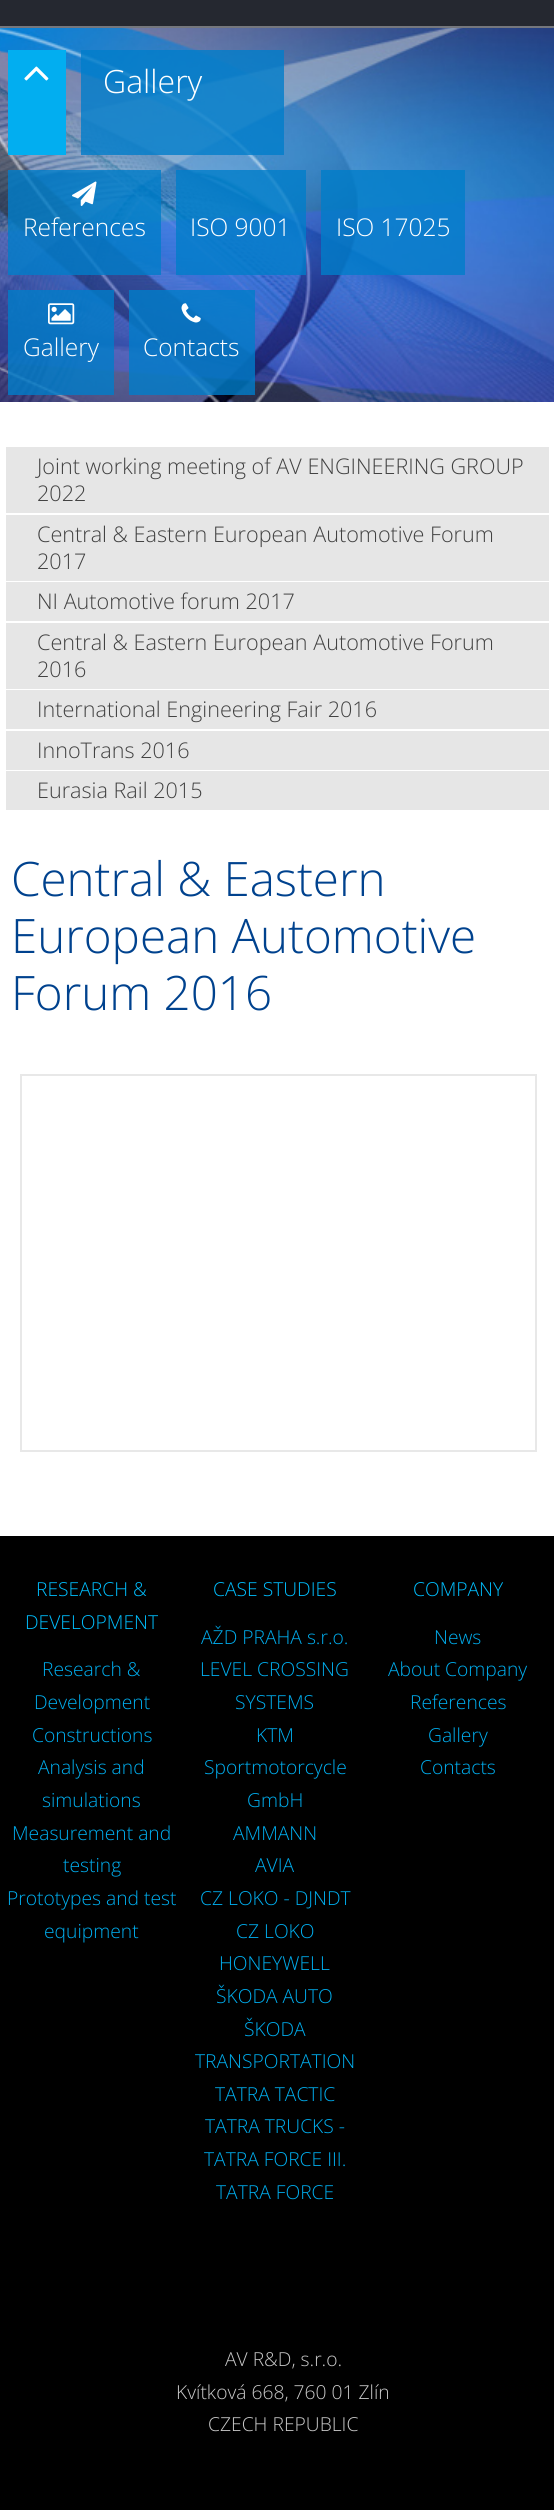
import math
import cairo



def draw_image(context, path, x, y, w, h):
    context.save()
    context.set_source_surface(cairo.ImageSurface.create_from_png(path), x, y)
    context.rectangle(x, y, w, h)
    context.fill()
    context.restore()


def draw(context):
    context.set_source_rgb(1, 1, 1)
    context.paint()
    context.set_source_rgb(37 / 255, 40 / 255, 48 / 255)
    context.rectangle(0, 0, 554, 26)
    context.fill()
    context.set_source_rgb(117 / 255, 119 / 255, 125 / 255)
    context.rectangle(0, 26, 554, 2)
    context.fill()
    draw_image(context, "images/1.png", 0, 28, 554, 374)
    context.set_source_rgb(2 / 255, 174 / 255, 240 / 255)
    context.rectangle(8, 50, 58, 105)
    context.fill()
    draw_image(context, "images/2.png", 24, 66, 25, 15)
    context.set_source_rgba(0, 125 / 255, 202 / 255, 0.8)
    context.rectangle(81, 50, 203, 105)
    context.fill()
    context.set_source_rgba(0, 125 / 255, 201 / 255, 0.8)
    context.rectangle(8, 170, 153, 105)
    context.fill()
    draw_image(context, "images/3.png", 72, 181, 25, 25)
    context.rectangle(176, 170, 130, 105)
    context.fill()
    context.rectangle(321, 170, 144, 105)
    context.fill()
    context.rectangle(8, 290, 106, 105)
    context.fill()
    draw_image(context, "images/4.png", 48, 303, 27, 22)
    context.rectangle(129, 290, 126, 105)
    context.fill()
    draw_image(context, "images/5.png", 181, 303, 20, 20)
    context.set_source_rgb(230 / 255, 230 / 255, 230 / 255)
    context.rectangle(6, 447, 543, 66)
    context.fill()
    context.rectangle(6, 515, 543, 66)
    context.fill()
    context.rectangle(6, 582, 543, 39)
    context.fill()
    context.rectangle(6, 623, 543, 66)
    context.fill()
    context.rectangle(6, 690, 543, 39)
    context.fill()
    context.rectangle(6, 731, 543, 39)
    context.fill()
    context.rectangle(6, 771, 543, 39)
    context.fill()
    context.rectangle(21, 1075, 515, 376)
    context.set_source_rgb(232 / 255, 232 / 255, 232 / 255)
    context.stroke()
    context.set_source_rgb(0, 0, 0)
    context.rectangle(0, 1536, 554, 974)
    context.fill()
    context.select_font_face("Open Sans Light")
    context.set_font_size(32)
    context.set_source_rgb(1, 1, 1)
    context.move_to(103, 93)
    context.show_text("Gallery")
    context.set_font_size(24.5)
    context.move_to(23, 236)
    context.show_text("References")
    context.move_to(190, 236)
    context.show_text("ISO 9001")
    context.move_to(336, 236)
    context.show_text("ISO 17025")
    context.move_to(23, 356)
    context.show_text("Gallery")
    context.move_to(143, 356)
    context.show_text("Contacts")
    context.set_font_size(21.6)
    context.set_source_rgb(65 / 255, 65 / 255, 65 / 255)
    context.move_to(37, 474)
    context.show_text("Joint working meeting of AV ENGINEERING GROUP")
    context.move_to(37, 501)
    context.show_text("2022")
    context.move_to(37, 542)
    context.show_text("Central & Eastern European Automotive Forum")
    context.move_to(37, 569)
    context.show_text("2017")
    context.move_to(37, 609)
    context.show_text("NI Automotive forum 2017")
    context.move_to(37, 650)
    context.show_text("Central & Eastern European Automotive Forum")
    context.move_to(37, 677)
    context.show_text("2016")
    context.move_to(37, 717)
    context.show_text("International Engineering Fair 2016")
    context.move_to(37, 758)
    context.show_text("InnoTrans 2016")
    context.move_to(37, 798)
    context.show_text("Eurasia Rail 2015")
    context.set_font_size(47.5)
    context.set_source_rgb(0, 66 / 255, 142 / 255)
    context.move_to(11, 896)
    context.show_text("Central & Eastern")
    context.move_to(11, 953)
    context.show_text("European Automotive")
    context.move_to(11, 1010)
    context.show_text("Forum 2016")
    context.set_font_size(19.25)
    context.set_source_rgb(0, 191 / 255, 1)
    context.move_to(36, 1596)
    context.show_text("RESEARCH &")
    context.move_to(25, 1629)
    context.show_text("DEVELOPMENT")
    context.set_source_rgb(0, 174 / 255, 239 / 255)
    context.move_to(42, 1676)
    context.show_text("Research &")
    context.move_to(34, 1709)
    context.show_text("Development")
    context.move_to(32, 1742)
    context.show_text("Constructions")
    context.move_to(38, 1774)
    context.show_text("Analysis and")
    context.move_to(42, 1807)
    context.show_text("simulations")
    context.move_to(12, 1840)
    context.show_text("Measurement and")
    context.move_to(63, 1872)
    context.show_text("testing")
    context.move_to(7, 1905)
    context.show_text("Prototypes and test")
    context.move_to(44, 1938)
    context.show_text("equipment")
    context.set_source_rgb(0, 191 / 255, 1)
    context.move_to(213, 1596)
    context.show_text("CASE STUDIES")
    context.set_source_rgb(0, 174 / 255, 239 / 255)
    context.move_to(201, 1644)
    context.show_text("AŽD PRAHA s.r.o.")
    context.move_to(200, 1676)
    context.show_text("LEVEL CROSSING")
    context.move_to(235, 1709)
    context.show_text("SYSTEMS")
    context.move_to(256, 1742)
    context.show_text("KTM")
    context.move_to(204, 1774)
    context.show_text("Sportmotorcycle")
    context.move_to(247, 1807)
    context.show_text("GmbH")
    context.move_to(233, 1840)
    context.show_text("AMMANN")
    context.move_to(255, 1872)
    context.show_text("AVIA")
    context.move_to(200, 1905)
    context.show_text("CZ LOKO - DJNDT")
    context.move_to(236, 1938)
    context.show_text("CZ LOKO")
    context.move_to(219, 1970)
    context.show_text("HONEYWELL")
    context.move_to(216, 2003)
    context.show_text("ŠKODA AUTO")
    context.move_to(244, 2036)
    context.show_text("ŠKODA")
    context.move_to(195, 2068)
    context.show_text("TRANSPORTATION")
    context.move_to(215, 2101)
    context.show_text("TATRA TACTIC")
    context.move_to(205, 2133)
    context.show_text("TATRA TRUCKS -")
    context.move_to(204, 2166)
    context.show_text("TATRA FORCE III.")
    context.move_to(216, 2199)
    context.show_text("TATRA FORCE")
    context.set_source_rgb(0, 191 / 255, 1)
    context.move_to(413, 1596)
    context.show_text("COMPANY")
    context.set_source_rgb(0, 174 / 255, 239 / 255)
    context.move_to(434, 1644)
    context.show_text("News")
    context.move_to(388, 1676)
    context.show_text("About Company")
    context.move_to(410, 1709)
    context.show_text("References")
    context.move_to(428, 1742)
    context.show_text("Gallery")
    context.move_to(420, 1774)
    context.show_text("Contacts")
    context.set_source_rgb(201 / 255, 201 / 255, 201 / 255)
    context.move_to(225, 2366)
    context.show_text("AV R&D, s.r.o.")
    context.move_to(176, 2399)
    context.show_text("Kvítková 668, 760 01 Zlín")
    context.move_to(208, 2431)
    context.show_text("CZECH REPUBLIC")


surface = cairo.ImageSurface(cairo.Format.RGB24, 554, 2510)
context = cairo.Context(surface)
options = cairo.FontOptions()
options.set_hint_metrics(cairo.HintMetrics.OFF)
options.set_hint_style(cairo.HintStyle.NONE)
context.set_font_options(options)
context.set_miter_limit(4)
draw(context)
surface.write_to_png("out.png")
